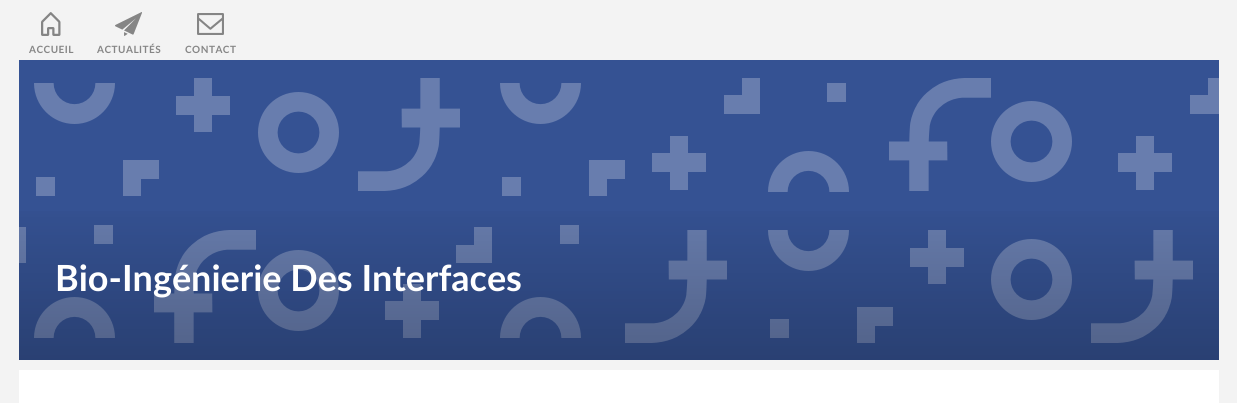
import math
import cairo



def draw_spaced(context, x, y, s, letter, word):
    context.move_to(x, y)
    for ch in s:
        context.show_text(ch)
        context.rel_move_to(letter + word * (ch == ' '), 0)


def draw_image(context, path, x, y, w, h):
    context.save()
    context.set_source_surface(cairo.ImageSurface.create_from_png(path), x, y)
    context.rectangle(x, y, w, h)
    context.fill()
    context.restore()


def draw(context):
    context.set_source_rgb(243 / 255, 243 / 255, 243 / 255)
    context.paint()
    context.set_source_rgb(1, 1, 1)
    context.rectangle(19, 370, 1200, 33)
    context.fill()
    draw_image(context, "images/1.png", 41, 12, 20, 24)
    draw_image(context, "images/2.png", 115, 12, 27, 24)
    draw_image(context, "images/3.png", 197, 13, 27, 22)
    context.set_source_rgb(53 / 255, 82 / 255, 147 / 255)
    context.rectangle(19, 60, 1200, 300)
    context.fill()
    draw_image(context, "images/4.png", 19, 78, 1200, 265)
    gradient = cairo.LinearGradient(619, 360, 619, 60)
    gradient.add_color_stop_rgba(0, 0, 0, 0, 0.22)
    gradient.add_color_stop_rgba(0.55, 0, 0, 0, 0)
    gradient.add_color_stop_rgba(1, 1, 1, 1, 0)
    context.set_source(gradient)
    context.rectangle(19, 211, 1200, 149)
    context.fill()
    context.select_font_face("Lato", cairo.FontSlant.NORMAL, cairo.FontWeight.BOLD)
    context.set_font_size(10)
    context.set_source_rgb(134 / 255, 134 / 255, 134 / 255)
    draw_spaced(context, 29, 53, "ACCUEIL", 0.5, 0)
    draw_spaced(context, 97, 53, "ACTUALITÉS", 0.5, 0)
    draw_spaced(context, 185, 53, "CONTACT", 0.5, 0)
    context.set_font_size(36)
    context.set_source_rgb(1, 1, 1)
    context.move_to(55, 291)
    context.show_text("Bio-Ingénierie Des Interfaces")


surface = cairo.ImageSurface(cairo.Format.RGB24, 1237, 403)
context = cairo.Context(surface)
options = cairo.FontOptions()
options.set_hint_metrics(cairo.HintMetrics.OFF)
options.set_hint_style(cairo.HintStyle.NONE)
context.set_font_options(options)
context.set_miter_limit(4)
draw(context)
surface.write_to_png("out.png")
